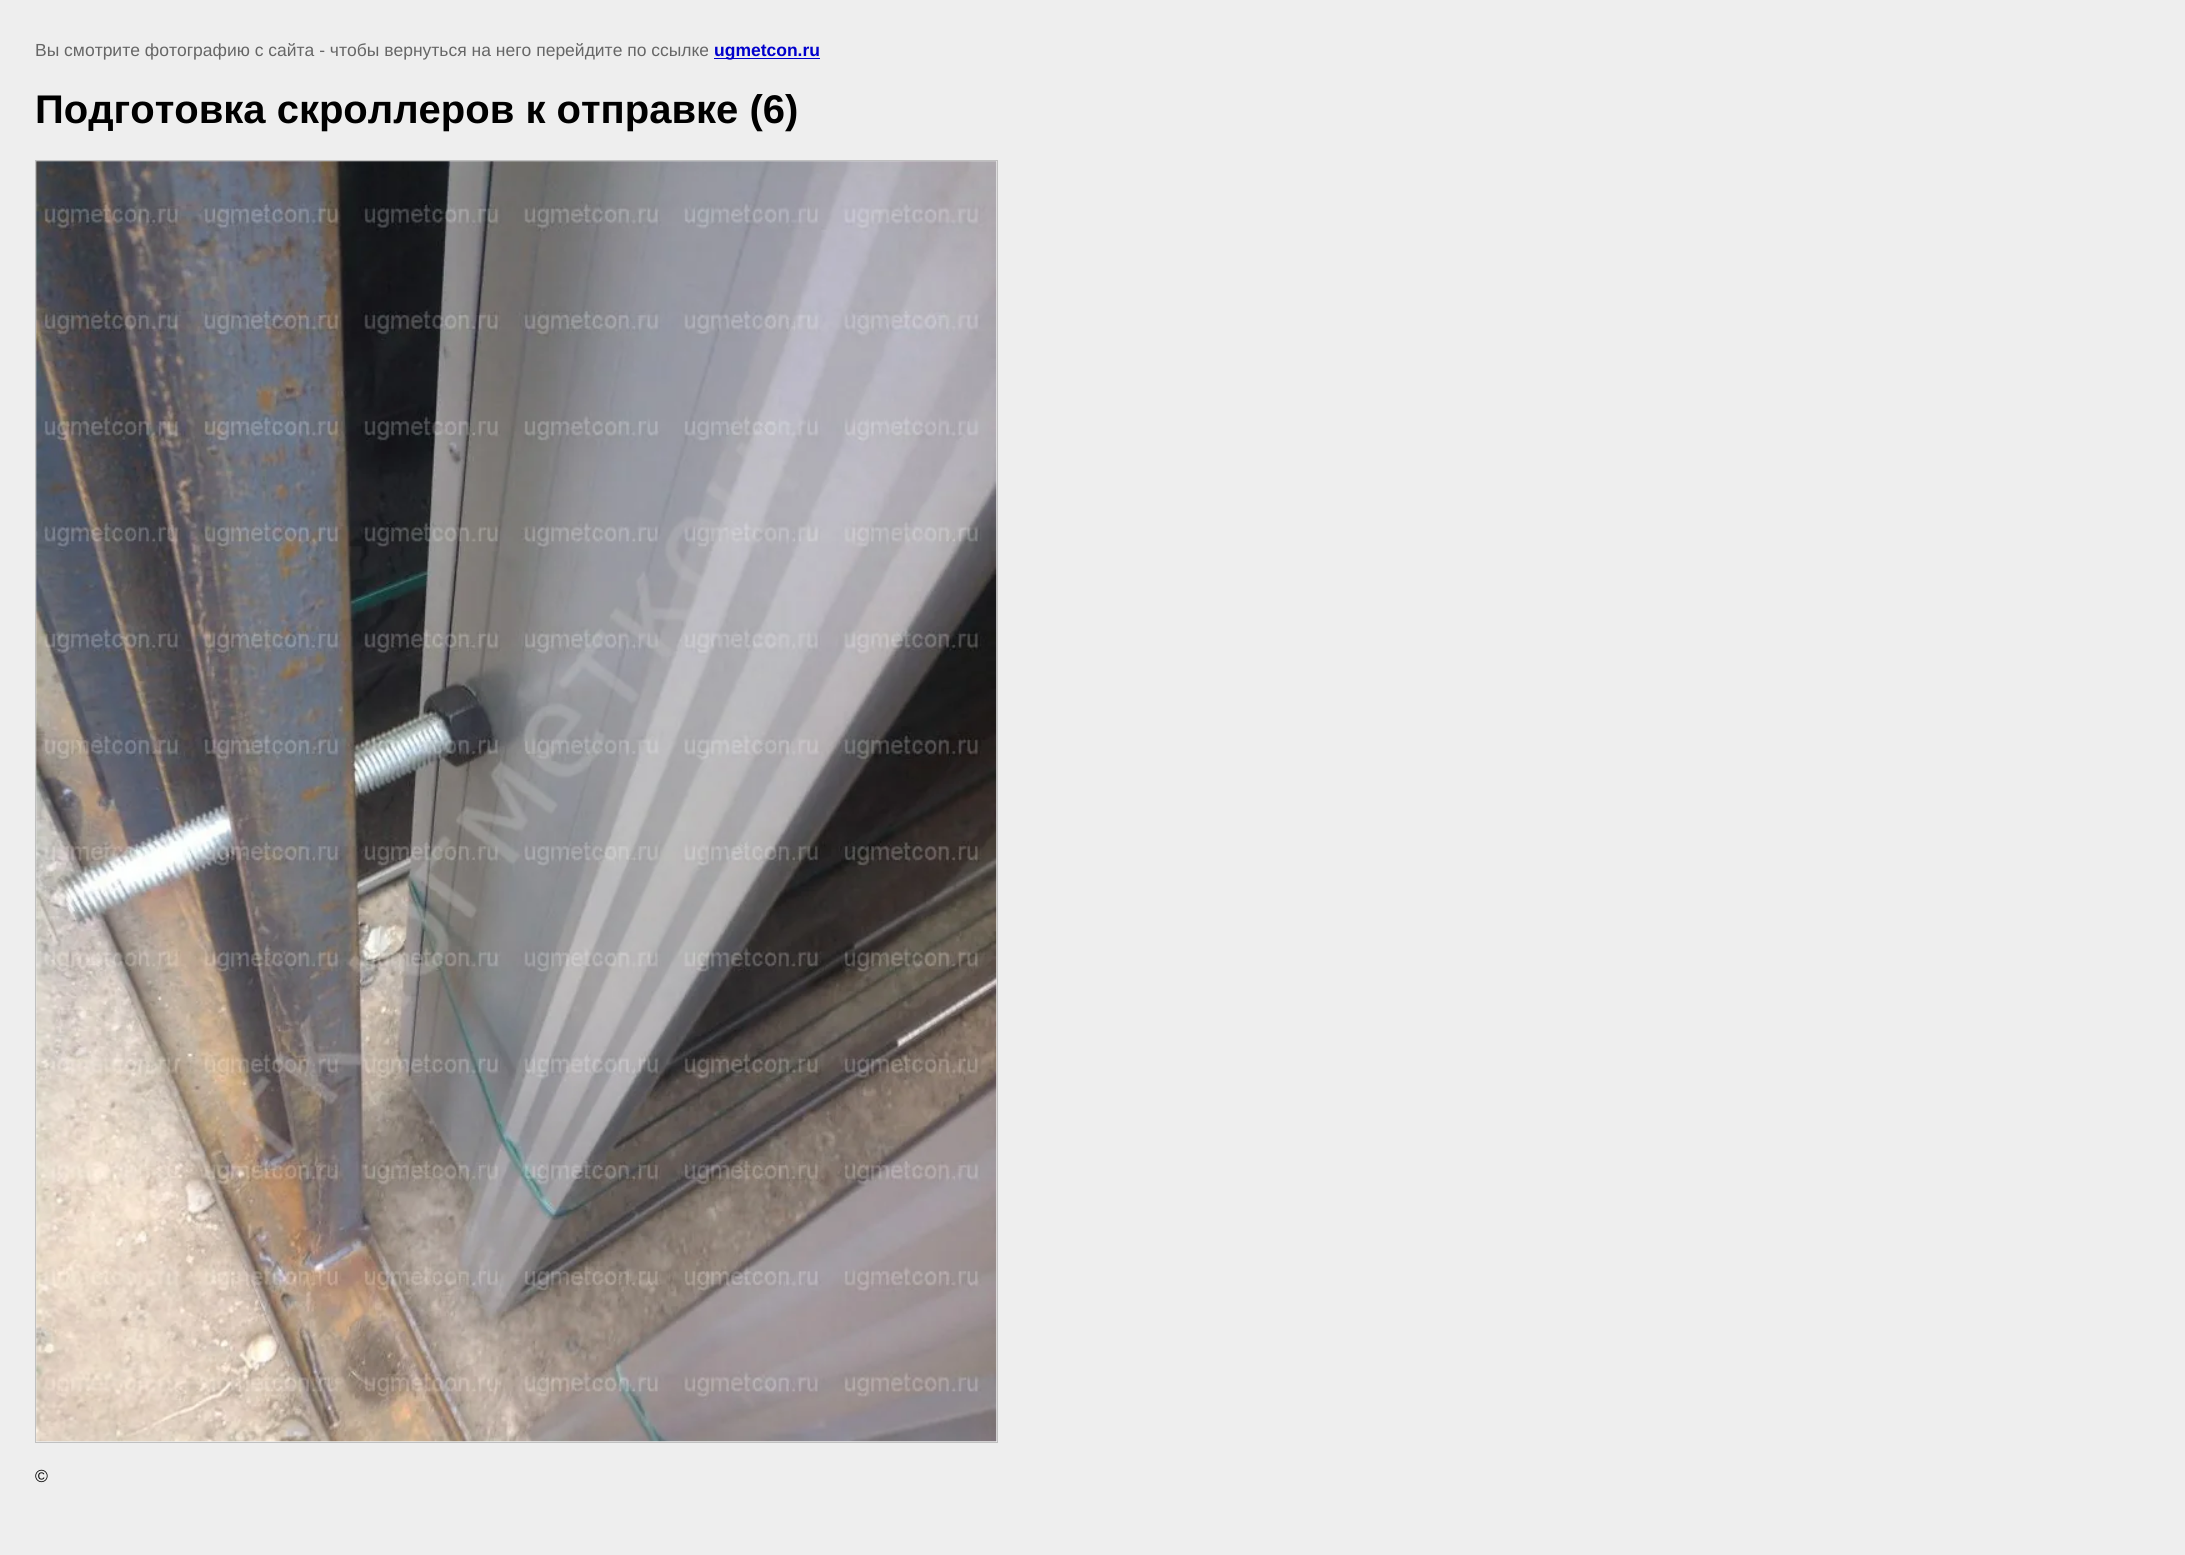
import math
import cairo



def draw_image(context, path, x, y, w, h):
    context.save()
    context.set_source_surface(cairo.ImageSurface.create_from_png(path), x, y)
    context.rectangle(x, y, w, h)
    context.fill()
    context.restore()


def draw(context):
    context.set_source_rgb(238 / 255, 238 / 255, 238 / 255)
    context.paint()
    context.set_source_rgb(0, 0, 204 / 255)
    context.rectangle(714, 58, 106, 1)
    context.fill()
    context.rectangle(35.5, 160.5, 962, 1282)
    context.set_source_rgb(192 / 255, 192 / 255, 192 / 255)
    context.set_line_width(1)
    context.stroke()
    draw_image(context, "images/1.png", 36, 161, 961, 1281)
    context.select_font_face("Liberation Sans")
    context.set_font_size(17.5)
    context.set_source_rgb(102 / 255, 102 / 255, 102 / 255)
    context.move_to(35, 56)
    context.show_text("Вы смотрите фотографию с сайта - чтобы вернуться на него перейдите по ссылке")
    context.select_font_face("Liberation Sans", cairo.FontSlant.NORMAL, cairo.FontWeight.BOLD)
    context.set_source_rgb(0, 0, 204 / 255)
    context.move_to(714, 56)
    context.show_text("ugmetcon.ru")
    context.set_font_size(40)
    context.set_source_rgb(0, 0, 0)
    context.move_to(35, 123)
    context.show_text("Подготовка скроллеров к отправке (6)")
    context.select_font_face("Liberation Sans")
    context.set_font_size(17.5)
    context.move_to(35, 1482)
    context.show_text("©")


surface = cairo.ImageSurface(cairo.Format.RGB24, 2185, 1555)
context = cairo.Context(surface)
options = cairo.FontOptions()
options.set_hint_metrics(cairo.HintMetrics.OFF)
options.set_hint_style(cairo.HintStyle.NONE)
context.set_font_options(options)
context.set_miter_limit(4)
draw(context)
surface.write_to_png("out.png")
